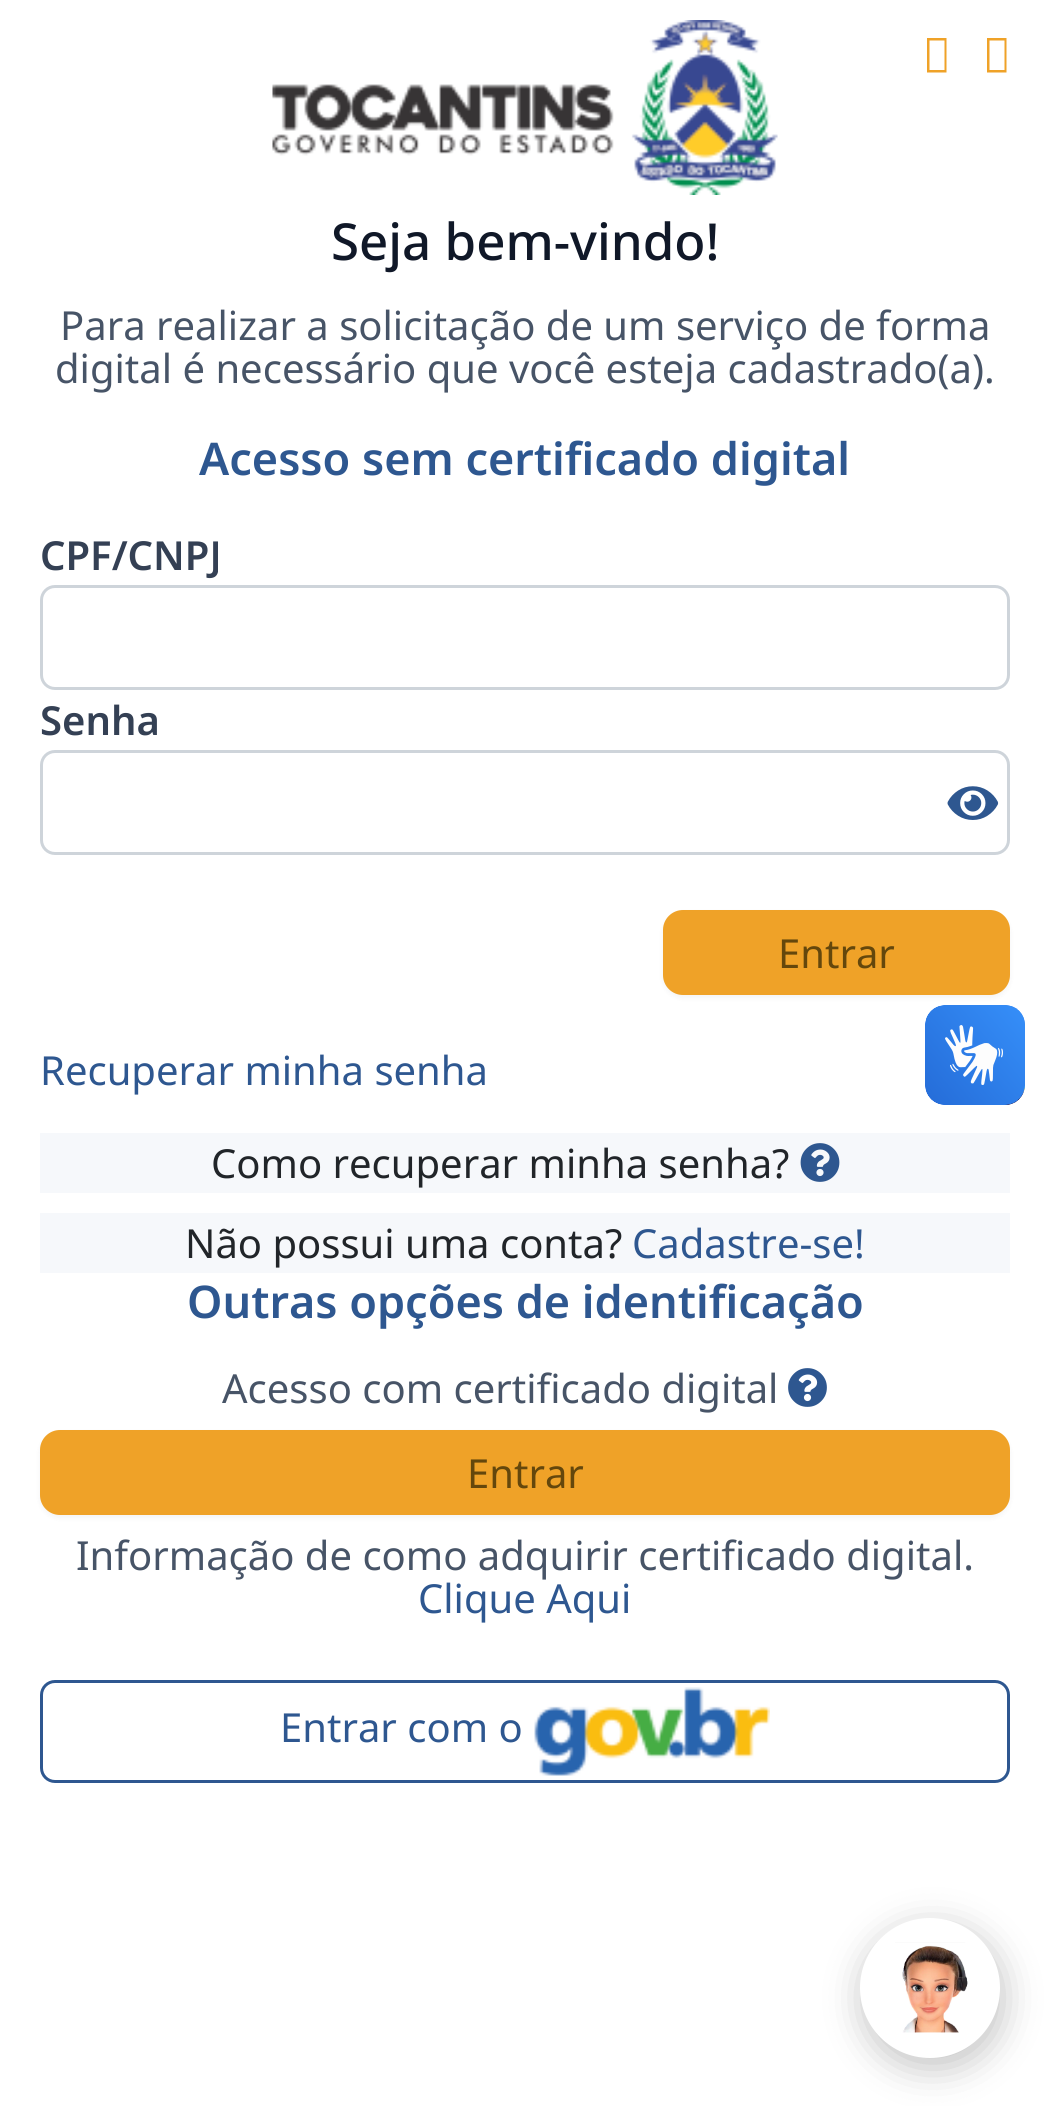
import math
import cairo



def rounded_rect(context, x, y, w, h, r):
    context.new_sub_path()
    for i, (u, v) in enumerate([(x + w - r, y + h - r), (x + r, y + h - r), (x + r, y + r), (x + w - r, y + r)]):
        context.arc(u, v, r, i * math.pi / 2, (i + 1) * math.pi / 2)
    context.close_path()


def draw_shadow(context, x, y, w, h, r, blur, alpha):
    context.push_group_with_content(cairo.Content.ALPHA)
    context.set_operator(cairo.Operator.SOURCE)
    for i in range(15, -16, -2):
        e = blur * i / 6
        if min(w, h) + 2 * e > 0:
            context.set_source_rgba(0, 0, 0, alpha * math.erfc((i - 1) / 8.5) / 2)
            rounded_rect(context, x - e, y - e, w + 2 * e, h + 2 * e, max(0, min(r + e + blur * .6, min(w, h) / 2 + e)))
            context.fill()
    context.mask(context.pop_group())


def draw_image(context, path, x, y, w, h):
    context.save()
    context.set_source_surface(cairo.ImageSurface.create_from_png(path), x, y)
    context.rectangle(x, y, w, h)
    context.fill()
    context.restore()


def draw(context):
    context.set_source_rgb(1, 1, 1)
    context.paint()
    context.set_source_rgb(239 / 255, 162 / 255, 40 / 255)
    context.new_path()
    context.move_to(927, 72.5)
    context.line_to(927, 38)
    context.line_to(946.5, 38)
    context.line_to(946.5, 72.5)
    context.close_path()
    context.move_to(929.5, 70)
    context.line_to(944.5, 70)
    context.line_to(944.5, 40.5)
    context.line_to(929.5, 40.5)
    context.close_path()
    context.fill()
    context.new_path()
    context.move_to(987, 72.5)
    context.line_to(987, 38)
    context.line_to(1006.5, 38)
    context.line_to(1006.5, 72.5)
    context.close_path()
    context.move_to(989.5, 70)
    context.line_to(1004.5, 70)
    context.line_to(1004.5, 40.5)
    context.line_to(989.5, 40.5)
    context.close_path()
    context.fill()
    draw_image(context, "images/1.png", 272, 20, 506, 175)
    rounded_rect(context, 41.5, 586.5, 967, 102, 13.5)
    context.set_source_rgb(206 / 255, 212 / 255, 218 / 255)
    context.set_line_width(3)
    context.stroke()
    rounded_rect(context, 41.5, 751.5, 967, 102, 13.5)
    context.stroke()
    draw_image(context, "images/2.png", 947, 786, 52, 34)
    context.set_source_rgb(16 / 255, 24 / 255, 40 / 255)
    draw_shadow(context, 663, 913, 347, 85, 20, 2.5, 0.05)
    context.set_source_rgb(239 / 255, 162 / 255, 40 / 255)
    rounded_rect(context, 664.5, 911.5, 344, 82, 18.5)
    context.fill_preserve()
    context.stroke()
    context.set_source_rgb(246 / 255, 248 / 255, 251 / 255)
    context.rectangle(40, 1133, 970, 60)
    context.fill()
    draw_image(context, "images/3.png", 800, 1143, 40, 39)
    context.rectangle(40, 1213, 970, 60)
    context.fill()
    draw_image(context, "images/4.png", 788, 1368, 39, 39)
    context.set_source_rgb(16 / 255, 24 / 255, 40 / 255)
    draw_shadow(context, 40, 1433, 970, 85, 20, 2.5, 0.05)
    context.set_source_rgb(239 / 255, 162 / 255, 40 / 255)
    rounded_rect(context, 41.5, 1431.5, 967, 82, 18.5)
    context.fill_preserve()
    context.stroke()
    rounded_rect(context, 41.5, 1681.5, 967, 100, 13.5)
    context.set_source_rgb(46 / 255, 87 / 255, 144 / 255)
    context.stroke()
    draw_image(context, "images/5.png", 534, 1687, 236, 89)
    draw_image(context, "images/6.png", 925, 1005, 100, 100)
    draw_image(context, "images/7.png", 925, 1005, 100, 100)
    context.set_source_rgb(0, 0, 0)
    draw_shadow(context, 863, 1928, 140, 140, 70, 19, 0.24)
    context.set_source_rgb(1, 1, 1)
    context.arc(930, 1988, 70, 0, 2 * math.pi)
    context.fill()
    draw_image(context, "images/8.png", 895, 1942, 73, 91)
    context.select_font_face("Noto Sans Medium")
    context.set_font_size(51)
    context.set_source_rgb(16 / 255, 24 / 255, 40 / 255)
    context.move_to(331, 260)
    context.show_text("Seja bem-vindo!")
    context.select_font_face("Noto Sans")
    context.set_font_size(40)
    context.set_source_rgb(71 / 255, 84 / 255, 103 / 255)
    context.move_to(60, 340)
    context.show_text("Para realizar a solicitação de um serviço de forma")
    context.move_to(55, 383)
    context.show_text("digital é necessário que você esteja cadastrado(a).")
    context.select_font_face("Noto Sans SemiBold")
    context.set_font_size(45)
    context.set_source_rgb(46 / 255, 87 / 255, 144 / 255)
    context.move_to(199, 475)
    context.show_text("Acesso sem certificado digital")
    context.set_font_size(40)
    context.set_source_rgb(52 / 255, 64 / 255, 84 / 255)
    context.move_to(40, 570)
    context.show_text("CPF/CNPJ")
    context.move_to(40, 735)
    context.show_text("Senha")
    context.select_font_face("Noto Sans")
    context.set_source_rgb(100 / 255, 71 / 255, 12 / 255)
    context.move_to(778, 968)
    context.show_text("Entrar")
    context.set_source_rgb(46 / 255, 87 / 255, 144 / 255)
    context.move_to(40, 1085)
    context.show_text("Recuperar minha senha")
    context.set_source_rgb(33 / 255, 37 / 255, 41 / 255)
    context.move_to(211, 1178)
    context.show_text("Como recuperar minha senha?")
    context.move_to(185, 1258)
    context.show_text("Não possui uma conta?")
    context.set_source_rgb(46 / 255, 87 / 255, 144 / 255)
    context.move_to(632, 1258)
    context.show_text("Cadastre-se!")
    context.select_font_face("Noto Sans SemiBold")
    context.set_font_size(45)
    context.move_to(187, 1318)
    context.show_text("Outras opções de identificação")
    context.select_font_face("Noto Sans")
    context.set_font_size(40)
    context.set_source_rgb(71 / 255, 84 / 255, 103 / 255)
    context.move_to(222, 1403)
    context.show_text("Acesso com certificado digital")
    context.set_source_rgb(100 / 255, 71 / 255, 12 / 255)
    context.move_to(467, 1488)
    context.show_text("Entrar")
    context.set_source_rgb(71 / 255, 84 / 255, 103 / 255)
    context.move_to(76, 1570)
    context.show_text("Informação de como adquirir certificado digital.")
    context.set_source_rgb(46 / 255, 87 / 255, 144 / 255)
    context.move_to(418, 1613)
    context.show_text("Clique Aqui")
    context.move_to(280, 1742)
    context.show_text("Entrar com o")


surface = cairo.ImageSurface(cairo.Format.RGB24, 1050, 2106)
context = cairo.Context(surface)
options = cairo.FontOptions()
options.set_hint_metrics(cairo.HintMetrics.OFF)
options.set_hint_style(cairo.HintStyle.NONE)
context.set_font_options(options)
context.set_miter_limit(4)
draw(context)
surface.write_to_png("out.png")
